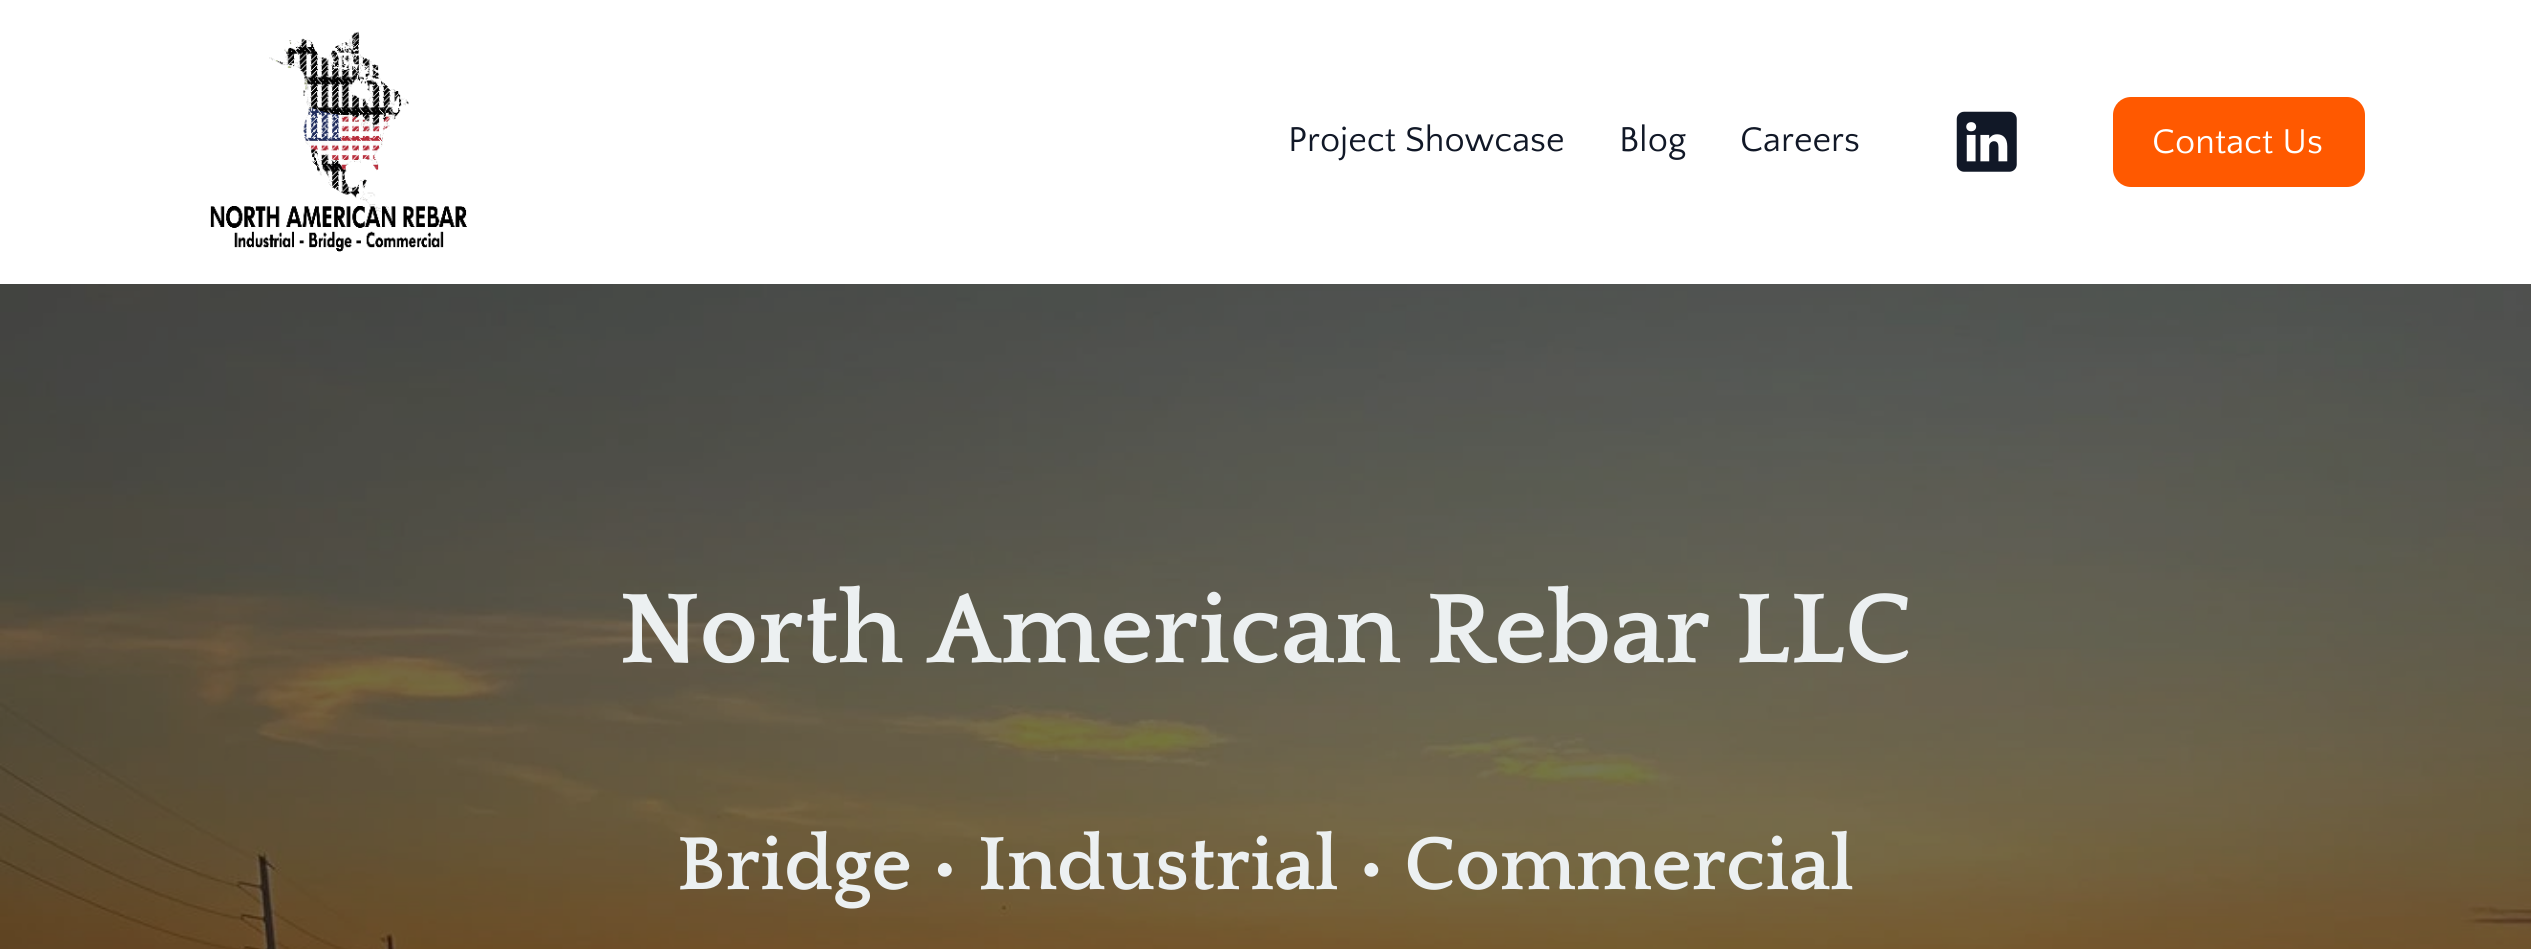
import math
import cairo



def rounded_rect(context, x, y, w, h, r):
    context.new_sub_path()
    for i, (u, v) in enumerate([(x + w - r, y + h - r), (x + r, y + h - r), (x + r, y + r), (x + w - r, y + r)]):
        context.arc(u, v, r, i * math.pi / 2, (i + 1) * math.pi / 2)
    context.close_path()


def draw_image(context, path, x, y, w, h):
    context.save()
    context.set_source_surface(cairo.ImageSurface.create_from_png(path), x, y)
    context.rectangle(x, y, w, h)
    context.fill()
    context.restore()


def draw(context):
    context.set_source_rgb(1, 1, 1)
    context.paint()
    draw_image(context, "images/1.png", 210, 31, 257, 221)
    draw_image(context, "images/2.png", 1956, 111, 61, 61)
    context.set_source_rgb(1, 89 / 255, 0)
    rounded_rect(context, 2115.5, 99.5, 247, 85, 15.5)
    context.fill_preserve()
    context.set_line_width(5)
    context.stroke()
    draw_image(context, "images/3.png", 0, 284, 2531, 665)
    context.select_font_face("Quattrocento Sans")
    context.set_font_size(36)
    context.set_source_rgb(17 / 255, 24 / 255, 39 / 255)
    context.move_to(1288, 151)
    context.show_text("Project Showcase")
    context.move_to(1619, 151)
    context.show_text("Blog")
    context.move_to(1740, 151)
    context.show_text("Careers")
    context.set_source_rgb(1, 1, 1)
    context.move_to(2152, 153)
    context.show_text("Contact Us")
    context.select_font_face("Quattrocento", cairo.FontSlant.NORMAL, cairo.FontWeight.BOLD)
    context.set_font_size(103.5)
    context.set_source_rgb(236 / 255, 240 / 255, 241 / 255)
    context.move_to(619, 662)
    context.show_text("North American Rebar LLC")
    context.set_font_size(78.75)
    context.move_to(677, 889)
    context.show_text("Bridge • Industrial • Commercial")


surface = cairo.ImageSurface(cairo.Format.RGB24, 2531, 949)
context = cairo.Context(surface)
options = cairo.FontOptions()
options.set_hint_metrics(cairo.HintMetrics.OFF)
options.set_hint_style(cairo.HintStyle.NONE)
context.set_font_options(options)
context.set_miter_limit(4)
draw(context)
surface.write_to_png("out.png")
